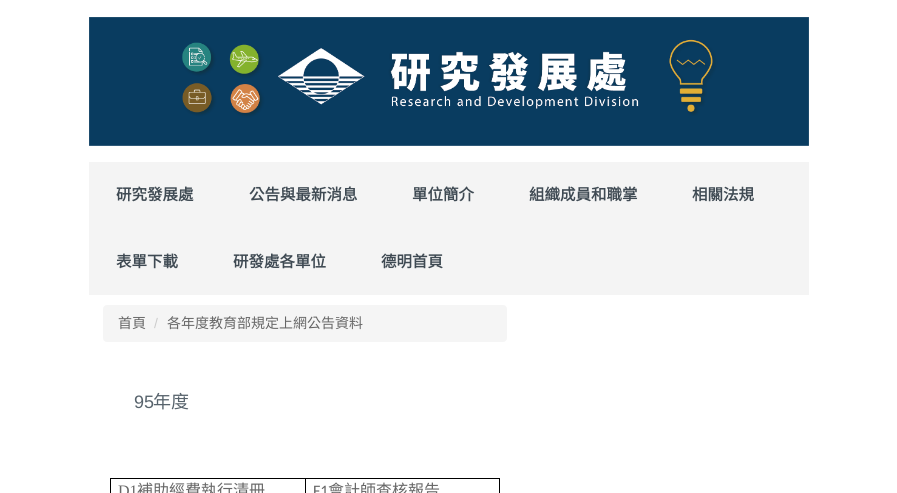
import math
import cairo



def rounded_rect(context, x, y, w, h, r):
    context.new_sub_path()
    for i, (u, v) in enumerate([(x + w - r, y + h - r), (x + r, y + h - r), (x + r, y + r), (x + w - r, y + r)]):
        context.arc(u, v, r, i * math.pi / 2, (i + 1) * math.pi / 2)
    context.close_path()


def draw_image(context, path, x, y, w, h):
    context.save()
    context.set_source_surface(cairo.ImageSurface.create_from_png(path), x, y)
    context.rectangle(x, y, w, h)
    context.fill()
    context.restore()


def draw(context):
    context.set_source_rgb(1, 1, 1)
    context.paint()
    draw_image(context, "images/1.png", 89, 17, 720, 129)
    context.set_source_rgb(244 / 255, 244 / 255, 244 / 255)
    context.rectangle(89, 162, 720, 133)
    context.fill()
    context.set_source_rgb(245 / 255, 245 / 255, 245 / 255)
    rounded_rect(context, 103, 305, 404, 37, 4)
    context.fill()
    context.set_source_rgb(0, 0, 0)
    context.rectangle(110, 478, 390, 1)
    context.fill()
    context.rectangle(499, 478, 1, 15)
    context.fill()
    context.rectangle(110, 478, 1, 15)
    context.fill()
    context.rectangle(305, 478, 1, 15)
    context.fill()
    context.select_font_face("Noto Sans CJK TC", cairo.FontSlant.NORMAL, cairo.FontWeight.BOLD)
    context.set_font_size(15.5)
    context.set_source_rgb(63 / 255, 74 / 255, 83 / 255)
    context.move_to(116, 200)
    context.show_text("研究發展處")
    context.move_to(249, 200)
    context.show_text("公告與最新消息")
    context.move_to(412, 200)
    context.show_text("單位簡介")
    context.move_to(529, 200)
    context.show_text("組織成員和職掌")
    context.move_to(692, 200)
    context.show_text("相關法規")
    context.move_to(116, 267)
    context.show_text("表單下載")
    context.move_to(233, 267)
    context.show_text("研發處各單位")
    context.move_to(381, 267)
    context.show_text("德明首頁")
    context.select_font_face("Noto Sans CJK TC")
    context.set_font_size(14)
    context.set_source_rgb(103 / 255, 103 / 255, 103 / 255)
    context.move_to(118, 328)
    context.show_text("首頁")
    context.select_font_face("Liberation Sans")
    context.set_source_rgb(204 / 255, 204 / 255, 204 / 255)
    context.move_to(154, 328)
    context.show_text("/")
    context.select_font_face("Noto Sans CJK TC")
    context.set_source_rgb(103 / 255, 103 / 255, 103 / 255)
    context.move_to(167, 328)
    context.show_text("各年度教育部規定上網公告資料")
    context.select_font_face("Liberation Sans")
    context.set_font_size(18)
    context.set_source_rgb(87 / 255, 99 / 255, 108 / 255)
    context.move_to(134, 408)
    context.show_text("95")
    context.select_font_face("Noto Sans CJK TC")
    context.move_to(153, 408)
    context.show_text("年度")
    context.select_font_face("Liberation Serif")
    context.set_font_size(16)
    context.set_source_rgb(103 / 255, 103 / 255, 103 / 255)
    context.move_to(118, 496)
    context.show_text("D1")
    context.select_font_face("Noto Sans CJK TC")
    context.move_to(137, 496)
    context.show_text("補助經費執行清冊")
    context.select_font_face("Carlito")
    context.move_to(313, 496)
    context.show_text("F1")
    context.select_font_face("Noto Sans CJK TC")
    context.move_to(328, 496)
    context.show_text("會計師查核報告")


surface = cairo.ImageSurface(cairo.Format.RGB24, 897, 493)
context = cairo.Context(surface)
options = cairo.FontOptions()
options.set_hint_metrics(cairo.HintMetrics.OFF)
options.set_hint_style(cairo.HintStyle.NONE)
context.set_font_options(options)
context.set_miter_limit(4)
draw(context)
surface.write_to_png("out.png")
